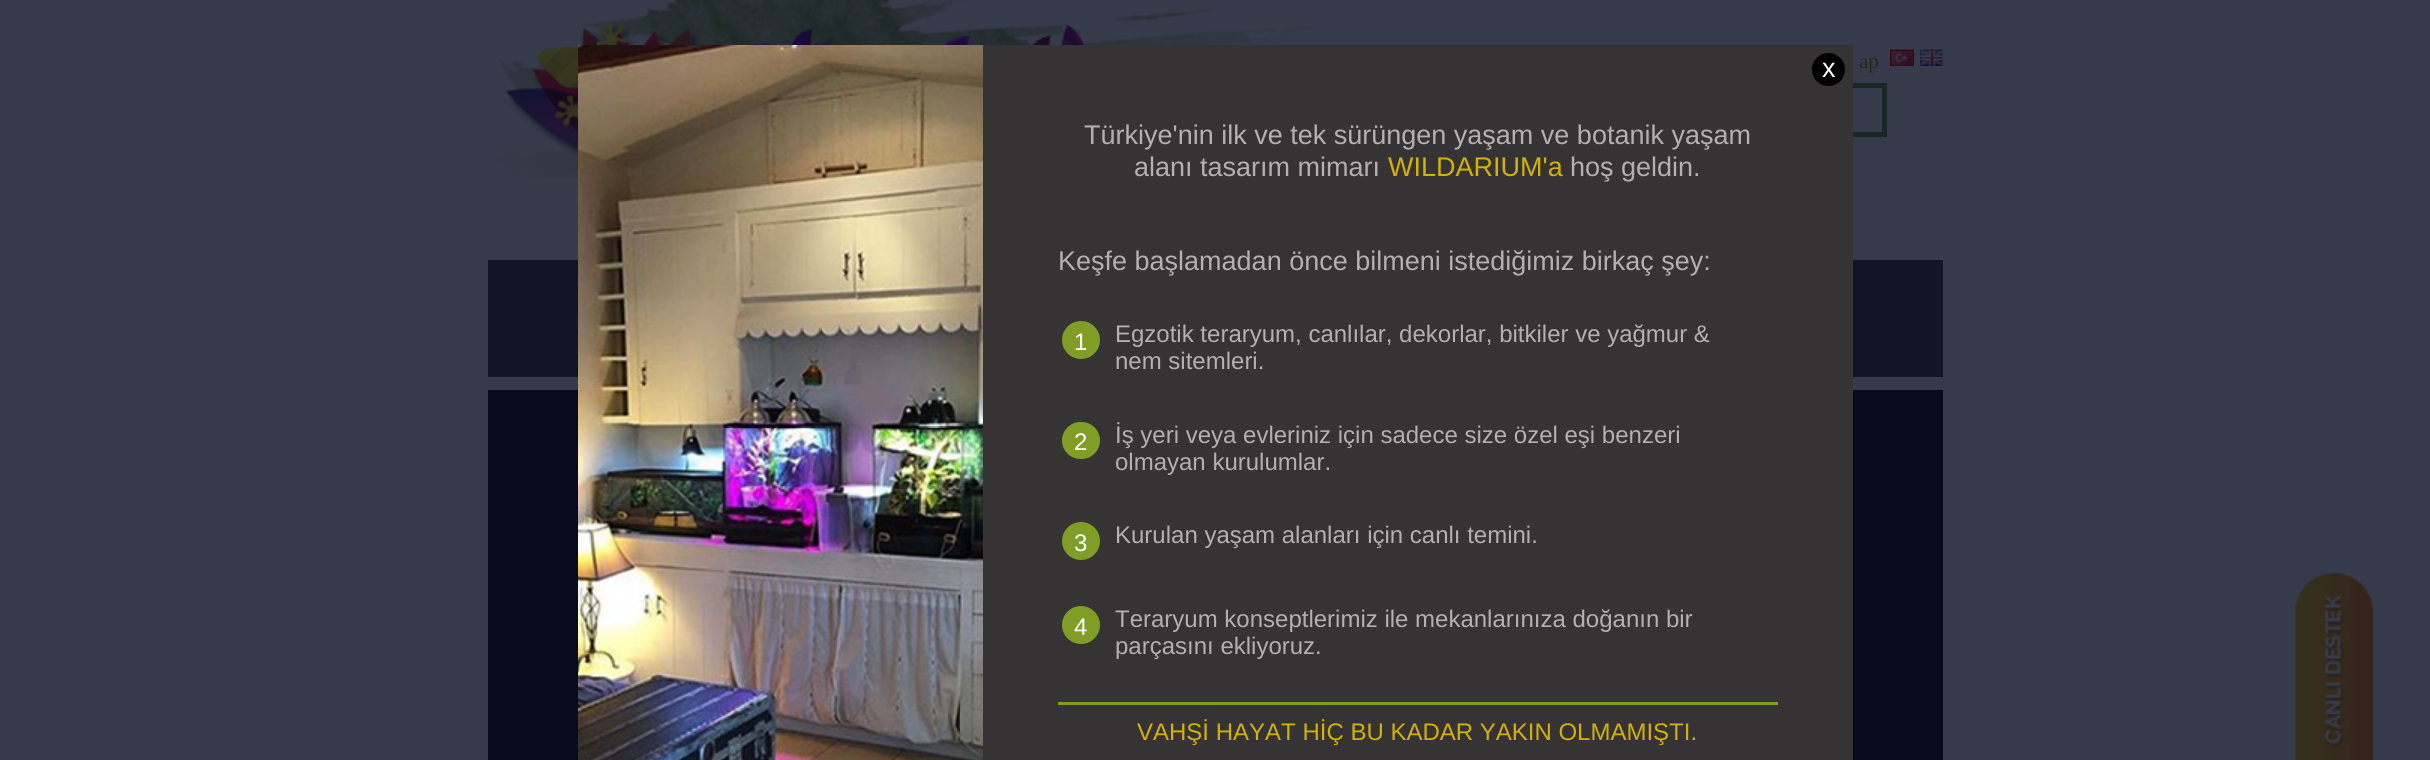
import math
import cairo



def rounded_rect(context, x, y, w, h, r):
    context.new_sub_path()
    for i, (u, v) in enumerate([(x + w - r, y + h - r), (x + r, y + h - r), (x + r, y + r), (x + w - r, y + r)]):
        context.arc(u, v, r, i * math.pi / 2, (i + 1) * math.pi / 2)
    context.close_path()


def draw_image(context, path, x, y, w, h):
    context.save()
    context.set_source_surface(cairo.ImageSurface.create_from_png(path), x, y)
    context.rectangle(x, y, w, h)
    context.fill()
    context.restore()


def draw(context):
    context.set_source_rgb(54 / 255, 59 / 255, 75 / 255)
    context.paint()
    draw_image(context, "images/2.png", 492, 0, 821, 179)
    context.set_source_rgb(17 / 255, 22 / 255, 38 / 255)
    context.rectangle(488, 260, 1455, 117)
    context.fill()
    draw_image(context, "images/1.png", 578, 45, 405, 715)
    context.rectangle(1592.5, 85.5, 292, 49)
    context.set_source_rgb(28 / 255, 37 / 255, 37 / 255)
    context.set_line_width(5)
    context.stroke()
    context.set_source_rgb(53 / 255, 51 / 255, 52 / 255)
    context.rectangle(983, 45, 870, 715)
    context.fill()
    context.set_source_rgb(0, 0, 0)
    context.arc(1828.5, 69.5, 16.5, 0, 2 * math.pi)
    context.fill()
    context.set_source_rgb(128 / 255, 157 / 255, 38 / 255)
    context.arc(1081, 340, 19, 0, 2 * math.pi)
    context.fill()
    rounded_rect(context, 1062, 422, 38, 37, 18.5)
    context.fill()
    context.arc(1081, 541, 19, 0, 2 * math.pi)
    context.fill()
    context.arc(1081, 625, 19, 0, 2 * math.pi)
    context.fill()
    context.rectangle(1058, 702, 720, 3)
    context.fill()
    draw_image(context, "images/3.png", 1890, 49, 24, 17)
    draw_image(context, "images/4.png", 1920, 49, 23, 17)
    context.set_source_rgb(7 / 255, 11 / 255, 27 / 255)
    context.rectangle(488, 390, 90, 370)
    context.fill()
    context.rectangle(1853, 390, 90, 370)
    context.fill()
    draw_image(context, "images/5.png", 2294, 572, 80, 188)
    context.select_font_face("Liberation Sans")
    context.set_font_size(27)
    context.set_source_rgb(1, 1, 1)
    context.move_to(1822, 77)
    context.show_text("x")
    context.set_source_rgb(177 / 255, 177 / 255, 177 / 255)
    context.move_to(1084, 144)
    context.show_text("Türkiye'nin ilk ve tek sürüngen yaşam ve botanik yaşam")
    context.move_to(1134, 176)
    context.show_text("alanı tasarım mimarı")
    context.set_source_rgb(211 / 255, 176 / 255, 10 / 255)
    context.move_to(1388, 176)
    context.show_text("WILDARIUM'a")
    context.set_source_rgb(177 / 255, 177 / 255, 177 / 255)
    context.move_to(1570, 176)
    context.show_text("hoş geldin.")
    context.move_to(1058, 270)
    context.show_text("Keşfe başlamadan önce bilmeni istediğimiz birkaç şey:")
    context.set_font_size(24)
    context.set_source_rgb(1, 1, 1)
    context.move_to(1074, 350)
    context.show_text("1")
    context.set_source_rgb(177 / 255, 177 / 255, 177 / 255)
    context.move_to(1115, 342)
    context.show_text("Egzotik teraryum, canlılar, dekorlar, bitkiler ve yağmur &")
    context.move_to(1115, 369)
    context.show_text("nem sitemleri.")
    context.set_source_rgb(1, 1, 1)
    context.move_to(1074, 450)
    context.show_text("2")
    context.set_source_rgb(177 / 255, 177 / 255, 177 / 255)
    context.move_to(1115, 443)
    context.show_text("İş yeri veya evleriniz için sadece size özel eşi benzeri")
    context.move_to(1115, 470)
    context.show_text("olmayan kurulumlar.")
    context.set_source_rgb(1, 1, 1)
    context.move_to(1074, 551)
    context.show_text("3")
    context.set_source_rgb(177 / 255, 177 / 255, 177 / 255)
    context.move_to(1115, 543)
    context.show_text("Kurulan yaşam alanları için canlı temini.")
    context.set_source_rgb(1, 1, 1)
    context.move_to(1074, 635)
    context.show_text("4")
    context.set_source_rgb(177 / 255, 177 / 255, 177 / 255)
    context.move_to(1115, 627)
    context.show_text("Teraryum konseptlerimiz ile mekanlarınıza doğanın bir")
    context.move_to(1115, 654)
    context.show_text("parçasını ekliyoruz.")
    context.set_source_rgb(211 / 255, 176 / 255, 10 / 255)
    context.move_to(1137, 740)
    context.show_text("VAHŞİ HAYAT HİÇ BU KADAR YAKIN OLMAMIŞTI.")
    context.select_font_face("Liberation Serif")
    context.set_font_size(21)
    context.set_source_rgb(31 / 255, 44 / 255, 28 / 255)
    context.move_to(1859, 68)
    context.show_text("ap")


surface = cairo.ImageSurface(cairo.Format.RGB24, 2430, 760)
context = cairo.Context(surface)
options = cairo.FontOptions()
options.set_hint_metrics(cairo.HintMetrics.OFF)
options.set_hint_style(cairo.HintStyle.NONE)
context.set_font_options(options)
context.set_miter_limit(4)
draw(context)
surface.write_to_png("out.png")
